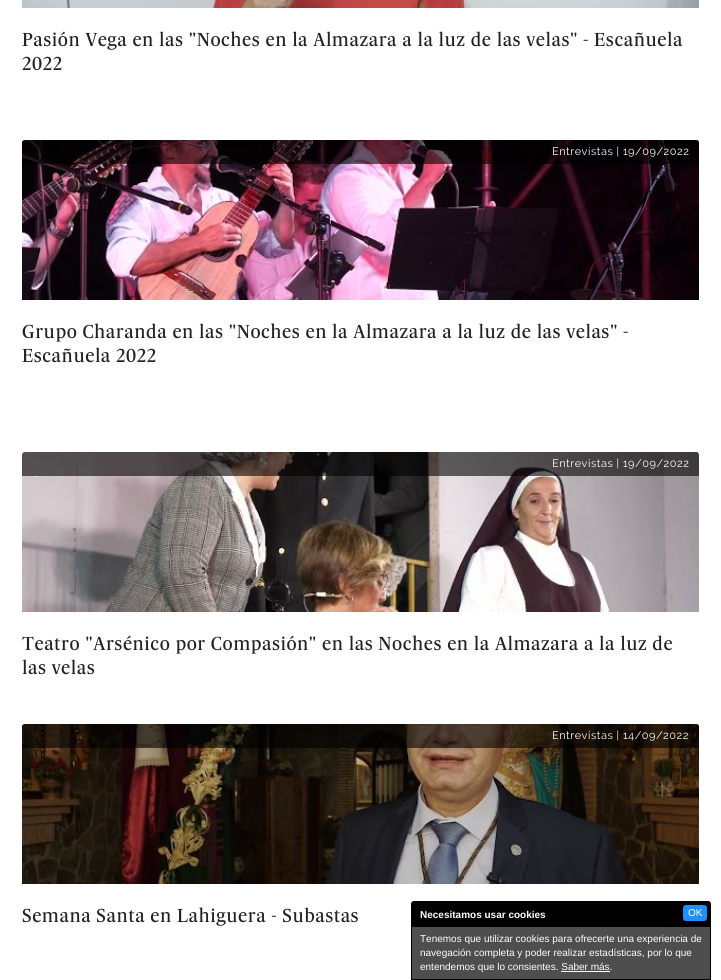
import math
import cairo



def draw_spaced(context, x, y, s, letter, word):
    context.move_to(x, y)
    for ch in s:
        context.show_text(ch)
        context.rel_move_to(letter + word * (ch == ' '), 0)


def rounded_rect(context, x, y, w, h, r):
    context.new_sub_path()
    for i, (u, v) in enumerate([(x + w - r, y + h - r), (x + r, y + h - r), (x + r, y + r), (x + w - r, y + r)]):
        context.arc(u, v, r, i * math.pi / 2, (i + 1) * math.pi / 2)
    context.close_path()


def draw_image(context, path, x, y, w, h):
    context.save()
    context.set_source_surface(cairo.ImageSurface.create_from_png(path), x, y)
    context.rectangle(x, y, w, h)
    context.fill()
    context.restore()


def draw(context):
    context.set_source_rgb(1, 1, 1)
    context.paint()
    draw_image(context, "images/1.png", 22, 0, 677, 8)
    draw_image(context, "images/2.png", 22, 140, 677, 160)
    context.set_source_rgba(0, 0, 0, 0.6)
    context.new_path()
    context.move_to(25, 140)
    context.line_to(696, 140)
    context.curve_to(697.5, 140, 699, 141.5, 699, 143)
    context.line_to(699, 164)
    context.line_to(22, 164)
    context.line_to(22, 143)
    context.curve_to(22, 141.5, 23.5, 140, 25, 140)
    context.close_path()
    context.fill()
    draw_image(context, "images/3.png", 22, 452, 677, 160)
    context.new_path()
    context.move_to(25, 452)
    context.line_to(696, 452)
    context.curve_to(697.5, 452, 699, 453.5, 699, 455)
    context.line_to(699, 476)
    context.line_to(22, 476)
    context.line_to(22, 455)
    context.curve_to(22, 453.5, 23.5, 452, 25, 452)
    context.close_path()
    context.fill()
    draw_image(context, "images/4.png", 22, 724, 677, 160)
    context.new_path()
    context.move_to(25, 724)
    context.line_to(696, 724)
    context.curve_to(697.5, 724, 699, 725.5, 699, 727)
    context.line_to(699, 748)
    context.line_to(22, 748)
    context.line_to(22, 727)
    context.curve_to(22, 725.5, 23.5, 724, 25, 724)
    context.close_path()
    context.fill()
    context.set_source_rgb(78 / 255, 78 / 255, 78 / 255)
    context.new_path()
    context.move_to(414, 901.5)
    context.line_to(708, 901.5)
    context.curve_to(709.5, 901.5, 710.5, 902.5, 710.5, 904)
    context.line_to(710.5, 979.5)
    context.line_to(411.5, 979.5)
    context.line_to(411.5, 904)
    context.curve_to(411.5, 902.5, 412.5, 901.5, 414, 901.5)
    context.close_path()
    context.fill_preserve()
    context.set_source_rgb(0, 0, 0)
    context.set_line_width(1)
    context.stroke()
    context.rectangle(412, 902, 298, 25)
    context.fill()
    context.set_source_rgb(30 / 255, 144 / 255, 1)
    rounded_rect(context, 683, 905, 24, 16, 3)
    context.fill()
    context.set_source_rgb(1, 1, 1)
    context.rectangle(561, 971, 49, 1)
    context.fill()
    context.select_font_face("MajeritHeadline")
    context.set_font_size(18)
    context.set_source_rgb(34 / 255, 34 / 255, 34 / 255)
    draw_spaced(context, 22, 46, "Pasión Vega en las \"Noches en la Almazara a la luz de las velas\" - Escañuela", 0.5, 0)
    draw_spaced(context, 22, 70, "2022", 0.5, 0)
    context.select_font_face("Raleway")
    context.set_font_size(11)
    context.set_source_rgb(1, 1, 1)
    draw_spaced(context, 552, 155, "Entrevistas | 19/09/2022", 0.5, 0)
    context.select_font_face("MajeritHeadline")
    context.set_font_size(18)
    context.set_source_rgb(34 / 255, 34 / 255, 34 / 255)
    draw_spaced(context, 22, 338, "Grupo Charanda en las \"Noches en la Almazara a la luz de las velas\" -", 0.5, 0)
    draw_spaced(context, 22, 362, "Escañuela 2022", 0.5, 0)
    context.select_font_face("Raleway")
    context.set_font_size(11)
    context.set_source_rgb(1, 1, 1)
    draw_spaced(context, 552, 467, "Entrevistas | 19/09/2022", 0.5, 0)
    context.select_font_face("MajeritHeadline")
    context.set_font_size(18)
    context.set_source_rgb(34 / 255, 34 / 255, 34 / 255)
    draw_spaced(context, 22, 650, "Teatro \"Arsénico por Compasión\" en las Noches en la Almazara a la luz de", 0.5, 0)
    draw_spaced(context, 22, 674, "las velas", 0.5, 0)
    context.select_font_face("Raleway")
    context.set_font_size(11)
    context.set_source_rgb(1, 1, 1)
    draw_spaced(context, 552, 739, "Entrevistas | 14/09/2022", 0.5, 0)
    context.select_font_face("MajeritHeadline")
    context.set_font_size(18)
    context.set_source_rgb(34 / 255, 34 / 255, 34 / 255)
    draw_spaced(context, 22, 922, "Semana Santa en Lahiguera - Subastas", 0.5, 0)
    context.select_font_face("Liberation Sans", cairo.FontSlant.NORMAL, cairo.FontWeight.BOLD)
    context.set_font_size(10)
    context.set_source_rgb(1, 1, 1)
    context.move_to(420, 918)
    context.show_text("Necesitamos usar cookies")
    context.select_font_face("Liberation Sans")
    context.move_to(688, 916)
    context.show_text("OK")
    context.move_to(420, 942)
    context.show_text("Tenemos que utilizar cookies para ofrecerte una experiencia de")
    context.move_to(420, 956)
    context.show_text("navegación completa y poder realizar estadísticas, por lo que")
    context.move_to(420, 970)
    context.show_text("entendemos que lo consientes. Saber más.")


surface = cairo.ImageSurface(cairo.Format.RGB24, 721, 980)
context = cairo.Context(surface)
options = cairo.FontOptions()
options.set_hint_metrics(cairo.HintMetrics.OFF)
options.set_hint_style(cairo.HintStyle.NONE)
context.set_font_options(options)
context.set_miter_limit(4)
draw(context)
surface.write_to_png("out.png")
